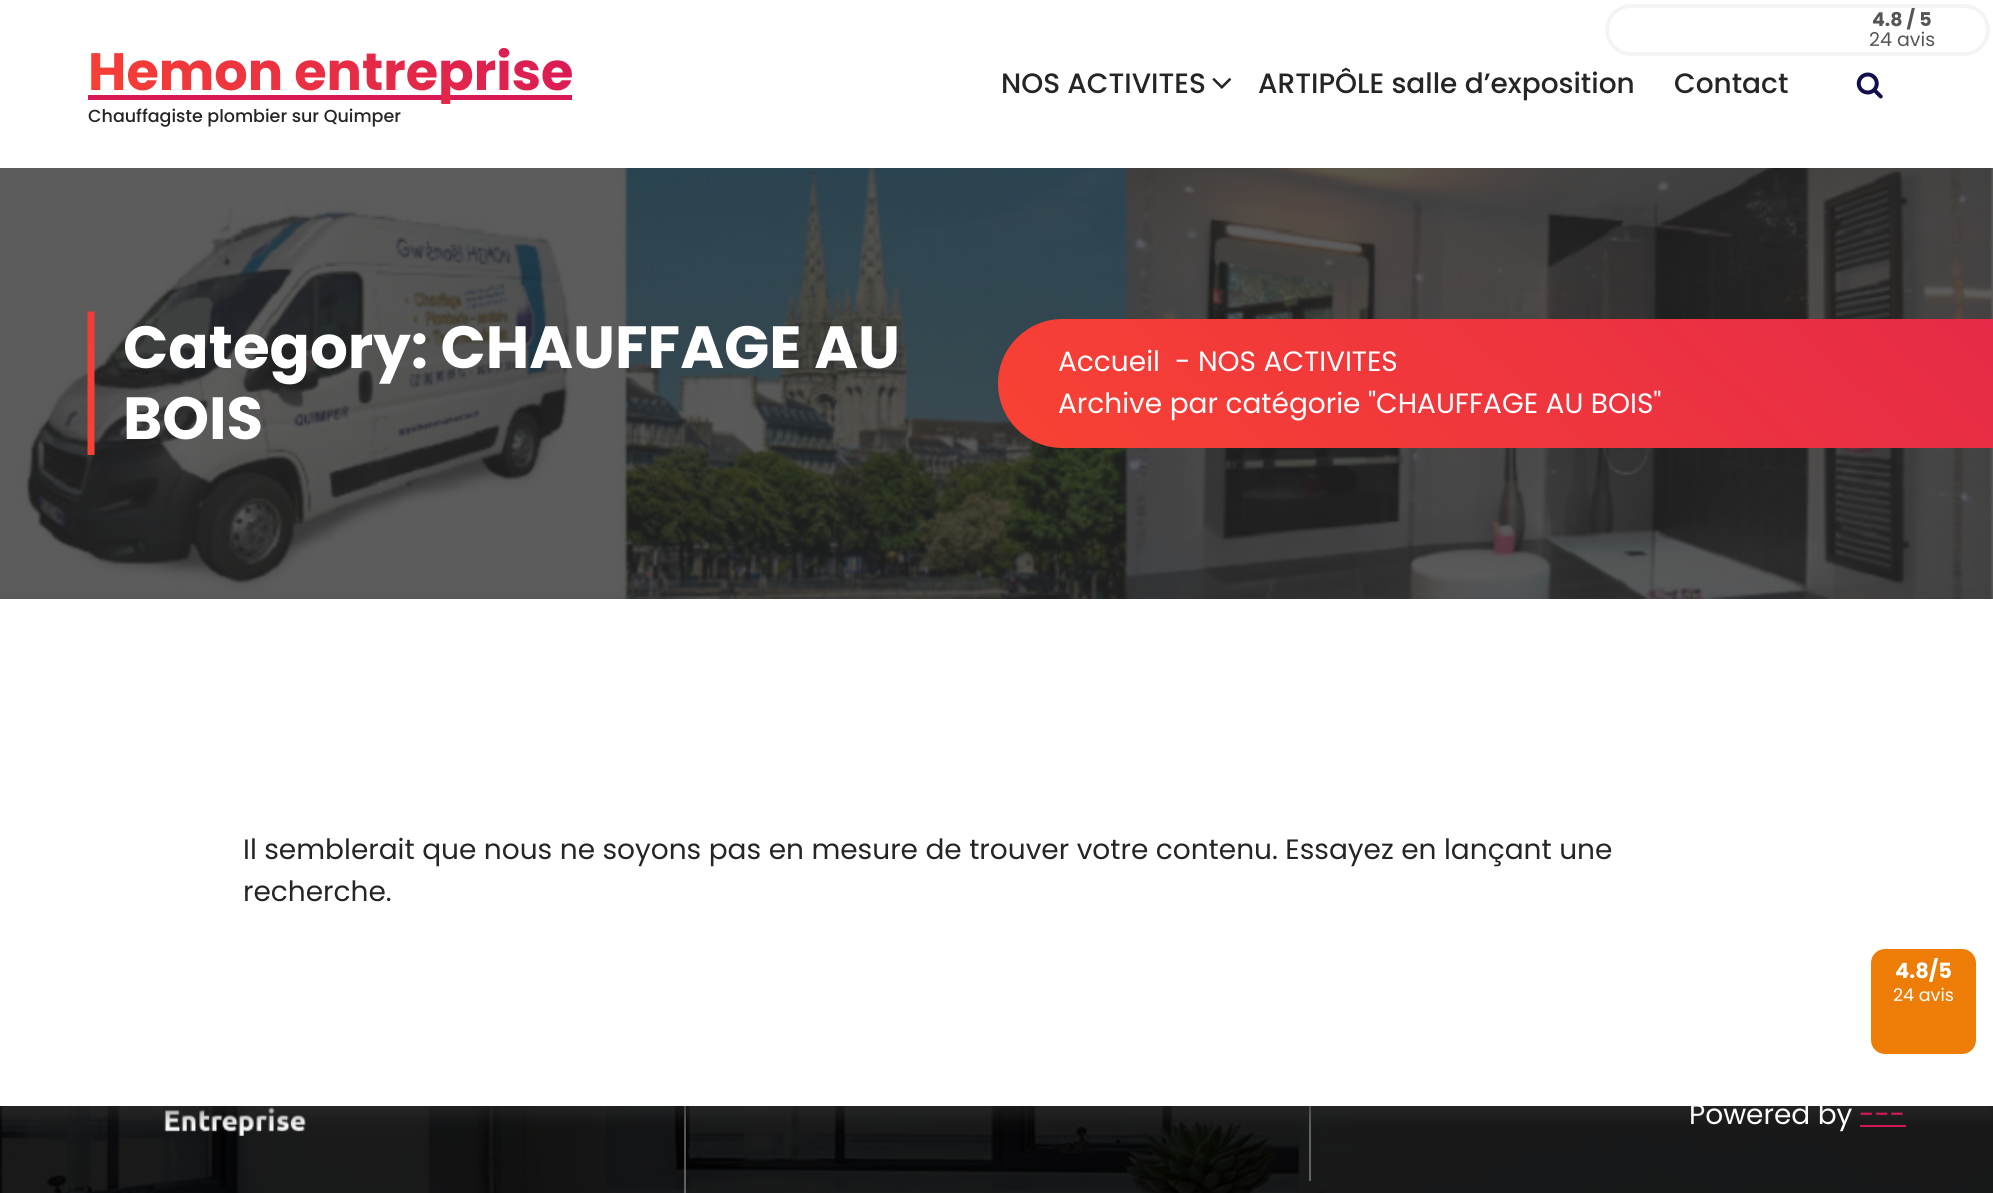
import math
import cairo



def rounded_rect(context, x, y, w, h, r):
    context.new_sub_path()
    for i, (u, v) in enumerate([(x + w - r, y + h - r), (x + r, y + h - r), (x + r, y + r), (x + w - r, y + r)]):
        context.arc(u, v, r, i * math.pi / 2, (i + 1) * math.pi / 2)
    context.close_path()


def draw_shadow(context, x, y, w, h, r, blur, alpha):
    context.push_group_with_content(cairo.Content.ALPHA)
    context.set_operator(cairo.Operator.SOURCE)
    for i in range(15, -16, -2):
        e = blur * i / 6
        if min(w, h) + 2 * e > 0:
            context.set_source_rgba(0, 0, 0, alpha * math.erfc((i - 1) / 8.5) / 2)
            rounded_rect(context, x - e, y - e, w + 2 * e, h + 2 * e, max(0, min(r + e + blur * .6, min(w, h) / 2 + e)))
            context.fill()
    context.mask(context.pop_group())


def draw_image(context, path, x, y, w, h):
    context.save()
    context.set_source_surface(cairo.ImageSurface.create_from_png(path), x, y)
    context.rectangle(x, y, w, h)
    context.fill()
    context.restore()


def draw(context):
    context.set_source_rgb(1, 1, 1)
    context.paint()
    rounded_rect(context, 1607, 6, 381, 48, 24)
    context.set_source_rgb(244 / 255, 244 / 255, 244 / 255)
    context.set_line_width(4)
    context.stroke()
    context.set_source_rgb(216 / 255, 25 / 255, 86 / 255)
    context.rectangle(88, 95, 484, 5)
    context.fill()
    draw_image(context, "images/1.png", 1212, 78, 20, 11)
    draw_image(context, "images/2.png", 1856, 72, 27, 27)
    draw_image(context, "images/3.png", 0, 168, 1993, 431)
    draw_image(context, "images/4.png", 87, 311, 8, 144)
    gradient = cairo.LinearGradient(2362, -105, 1451, 871)
    gradient.add_color_stop_rgba(0, 216 / 255, 25 / 255, 86 / 255, 1)
    gradient.add_color_stop_rgba(1, 248 / 255, 66 / 255, 51 / 255, 1)
    context.set_source(gradient)
    context.new_path()
    context.move_to(1062.5, 319)
    context.line_to(1993, 319)
    context.line_to(1993, 448)
    context.line_to(1062.5, 448)
    context.curve_to(1027, 448, 998, 419, 998, 383.5)
    context.curve_to(998, 348, 1027, 319, 1062.5, 319)
    context.close_path()
    context.fill()
    draw_image(context, "images/6.png", 0, 1106, 1993, 87)
    context.set_source_rgba(0, 0, 0, 0.6)
    context.rectangle(0, 1106, 1993, 87)
    context.fill()
    draw_image(context, "images/5.png", 164, 1107, 142, 29)
    context.set_source_rgba(189 / 255, 189 / 255, 189 / 255, 0.45)
    context.rectangle(684, 1106, 2, 87)
    context.fill()
    context.rectangle(1309, 1106, 2, 75)
    context.fill()
    context.set_source_rgb(216 / 255, 25 / 255, 86 / 255)
    context.rectangle(1860, 1125, 46, 2)
    context.fill()
    context.set_source_rgb(51 / 255, 51 / 255, 51 / 255)
    draw_shadow(context, 0, 607, 1993, 508, 0, 9, 0.5)
    context.set_source_rgb(1, 1, 1)
    context.rectangle(0, 599, 1993, 507)
    context.fill()
    context.set_source_rgb(237 / 255, 125 / 255, 6 / 255)
    rounded_rect(context, 1872, 950, 103, 103, 13)
    context.fill_preserve()
    context.set_line_width(2)
    context.stroke()
    context.select_font_face("Poppins", cairo.FontSlant.NORMAL, cairo.FontWeight.BOLD)
    context.set_font_size(19)
    context.set_source_rgb(85 / 255, 85 / 255, 85 / 255)
    context.move_to(1872, 26)
    context.show_text("4.8 / 5")
    context.select_font_face("Poppins")
    context.move_to(1869, 46)
    context.show_text("24 avis")
    context.select_font_face("Poppins", cairo.FontSlant.NORMAL, cairo.FontWeight.BOLD)
    context.set_font_size(52.5)
    gradient = cairo.LinearGradient(459, -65, 202, 211)
    gradient.add_color_stop_rgba(0, 216 / 255, 25 / 255, 86 / 255, 1)
    gradient.add_color_stop_rgba(1, 248 / 255, 66 / 255, 51 / 255, 1)
    context.set_source(gradient)
    context.move_to(88, 90)
    context.show_text("Hemon entreprise")
    context.select_font_face("Poppins Medium")
    context.set_font_size(17.5)
    context.set_source_rgb(37 / 255, 37 / 255, 37 / 255)
    context.move_to(88, 122)
    context.show_text("Chauffagiste plombier sur Quimper")
    context.set_font_size(28)
    context.move_to(1001, 93)
    context.show_text("NOS ACTIVITES")
    context.move_to(1258, 93)
    context.show_text("ARTIPÔLE salle d’exposition")
    context.move_to(1674, 93)
    context.show_text("Contact")
    context.select_font_face("Poppins", cairo.FontSlant.NORMAL, cairo.FontWeight.BOLD)
    context.set_font_size(59.5)
    context.set_source_rgb(1, 1, 1)
    context.move_to(123, 368)
    context.show_text("Category: CHAUFFAGE AU")
    context.move_to(123, 439)
    context.show_text("BOIS")
    context.select_font_face("Poppins")
    context.set_font_size(28)
    context.move_to(1058, 371)
    context.show_text("Accueil")
    context.move_to(1175, 371)
    context.show_text("- NOS ACTIVITES")
    context.move_to(1058, 413)
    context.show_text("Archive par catégorie \"CHAUFFAGE AU BOIS\"")
    context.set_source_rgb(37 / 255, 37 / 255, 37 / 255)
    context.move_to(243, 859)
    context.show_text("Il semblerait que nous ne soyons pas en mesure de trouver votre contenu. Essayez en lançant une")
    context.move_to(243, 901)
    context.show_text("recherche.")
    context.set_source_rgb(1, 1, 1)
    context.move_to(1689, 1124)
    context.show_text("Powered by")
    context.set_source_rgb(216 / 255, 25 / 255, 86 / 255)
    context.move_to(1859, 1124)
    context.show_text("---")
    context.select_font_face("Poppins", cairo.FontSlant.NORMAL, cairo.FontWeight.BOLD)
    context.set_font_size(21)
    context.set_source_rgb(1, 1, 1)
    context.move_to(1895, 978)
    context.show_text("4.8/5")
    context.select_font_face("Poppins")
    context.set_font_size(17.5)
    context.move_to(1893, 1001)
    context.show_text("24 avis")


surface = cairo.ImageSurface(cairo.Format.RGB24, 1993, 1193)
context = cairo.Context(surface)
options = cairo.FontOptions()
options.set_hint_metrics(cairo.HintMetrics.OFF)
options.set_hint_style(cairo.HintStyle.NONE)
context.set_font_options(options)
context.set_miter_limit(4)
draw(context)
surface.write_to_png("out.png")
